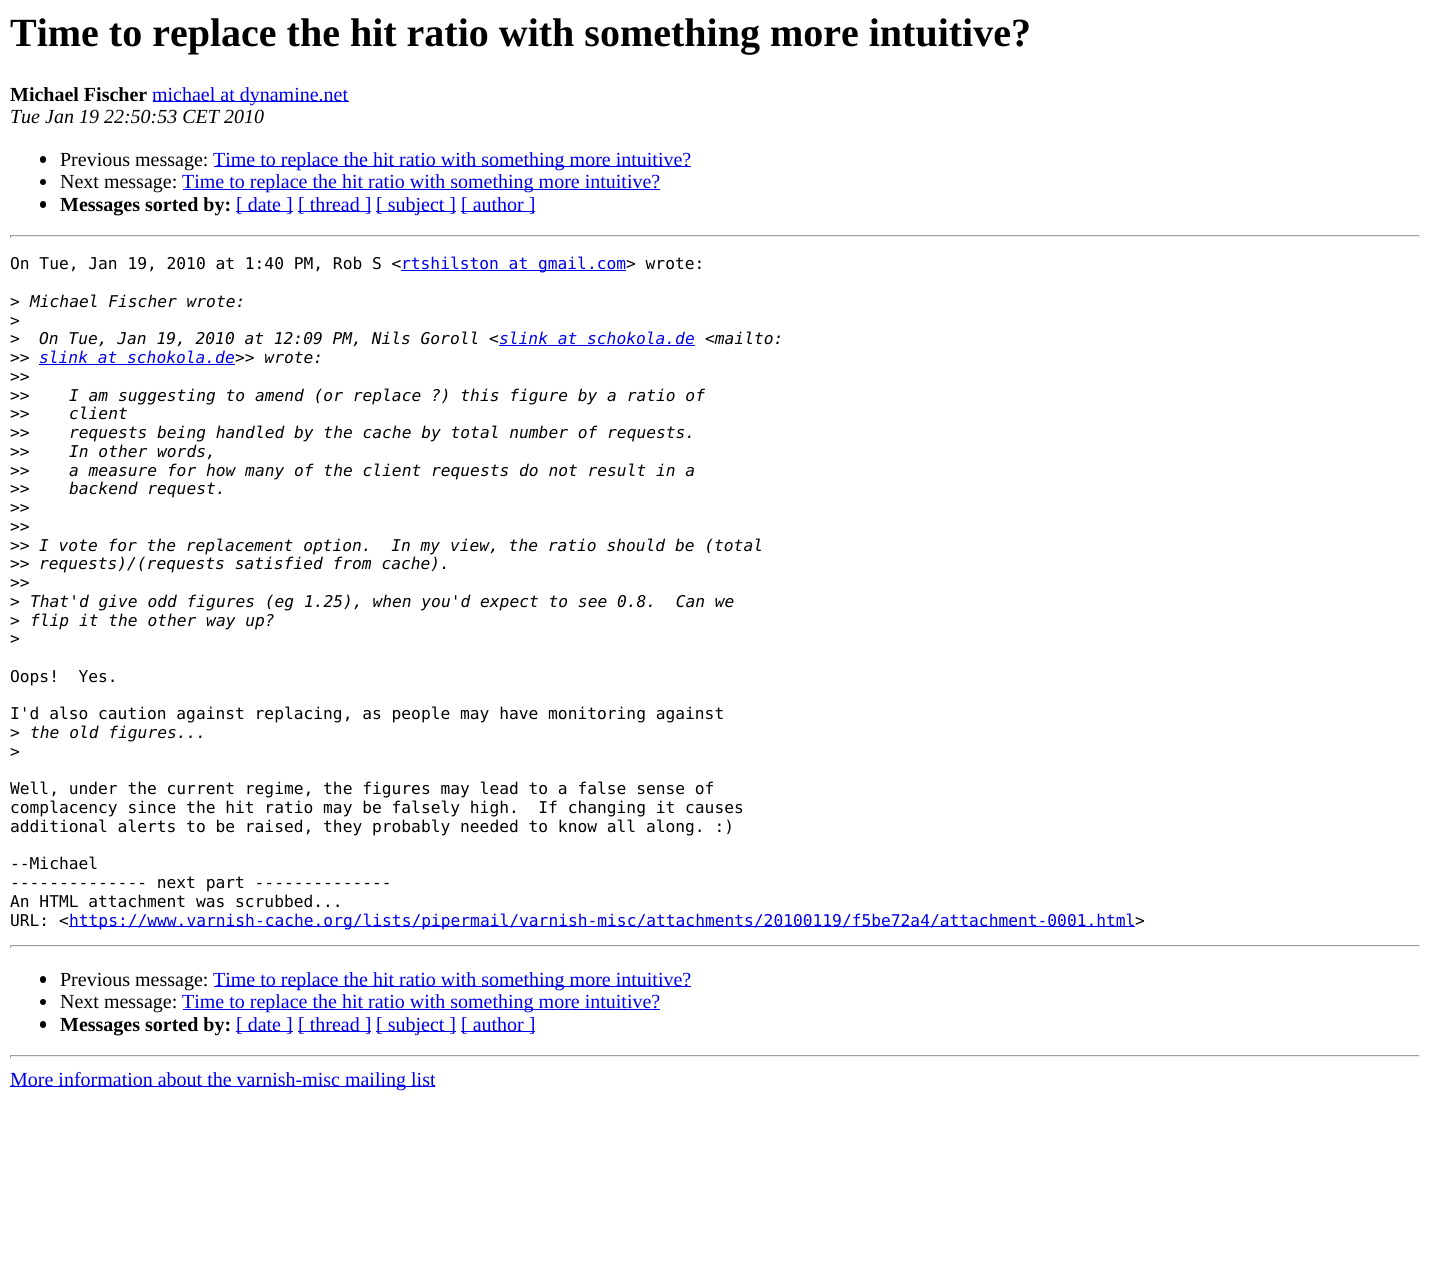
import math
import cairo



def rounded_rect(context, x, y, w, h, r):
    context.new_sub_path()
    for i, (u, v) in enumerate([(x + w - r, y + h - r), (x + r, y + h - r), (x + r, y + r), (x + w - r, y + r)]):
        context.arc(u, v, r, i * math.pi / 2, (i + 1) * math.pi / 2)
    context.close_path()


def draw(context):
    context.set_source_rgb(1, 1, 1)
    context.paint()
    context.set_source_rgb(0, 0, 238 / 255)
    context.rectangle(153, 101, 196, 1)
    context.fill()
    context.set_source_rgb(0, 0, 0)
    rounded_rect(context, 40, 156, 6, 7, 3)
    context.fill()
    context.set_source_rgb(0, 0, 238 / 255)
    context.rectangle(214, 166, 477, 1)
    context.fill()
    context.set_source_rgb(0, 0, 0)
    context.arc(43, 182, 3, 0, 2 * math.pi)
    context.fill()
    context.set_source_rgb(0, 0, 238 / 255)
    context.rectangle(183, 189, 477, 1)
    context.fill()
    context.set_source_rgb(0, 0, 0)
    rounded_rect(context, 40, 201, 6, 7, 3)
    context.fill()
    context.set_source_rgb(0, 0, 238 / 255)
    context.rectangle(236, 211, 57, 1)
    context.fill()
    context.rectangle(298, 211, 73, 1)
    context.fill()
    context.rectangle(376, 211, 80, 1)
    context.fill()
    context.rectangle(461, 211, 74, 1)
    context.fill()
    context.set_source_rgb(159 / 255, 159 / 255, 159 / 255)
    context.rectangle(10, 235, 1410, 1)
    context.fill()
    context.set_source_rgb(238 / 255, 238 / 255, 238 / 255)
    context.rectangle(1419, 235, 1, 3)
    context.fill()
    context.rectangle(10, 236, 1410, 1)
    context.fill()
    context.set_source_rgb(159 / 255, 159 / 255, 159 / 255)
    context.rectangle(10, 235, 1, 3)
    context.fill()
    context.set_source_rgb(0, 0, 238 / 255)
    context.rectangle(401, 270, 225, 1)
    context.fill()
    context.rectangle(499, 345, 196, 1)
    context.fill()
    context.rectangle(39, 364, 196, 1)
    context.fill()
    context.rectangle(69, 926, 1066, 1)
    context.fill()
    context.set_source_rgb(159 / 255, 159 / 255, 159 / 255)
    context.rectangle(10, 945, 1410, 1)
    context.fill()
    context.set_source_rgb(238 / 255, 238 / 255, 238 / 255)
    context.rectangle(1419, 945, 1, 3)
    context.fill()
    context.rectangle(10, 946, 1410, 1)
    context.fill()
    context.set_source_rgb(159 / 255, 159 / 255, 159 / 255)
    context.rectangle(10, 945, 1, 3)
    context.fill()
    context.set_source_rgb(0, 0, 0)
    rounded_rect(context, 40, 976, 6, 7, 3)
    context.fill()
    context.set_source_rgb(0, 0, 238 / 255)
    context.rectangle(214, 986, 477, 1)
    context.fill()
    context.set_source_rgb(0, 0, 0)
    context.arc(43, 1002, 3, 0, 2 * math.pi)
    context.fill()
    context.set_source_rgb(0, 0, 238 / 255)
    context.rectangle(183, 1009, 477, 1)
    context.fill()
    context.set_source_rgb(0, 0, 0)
    rounded_rect(context, 40, 1021, 6, 7, 3)
    context.fill()
    context.set_source_rgb(0, 0, 238 / 255)
    context.rectangle(236, 1031, 57, 1)
    context.fill()
    context.rectangle(298, 1031, 73, 1)
    context.fill()
    context.rectangle(376, 1031, 80, 1)
    context.fill()
    context.rectangle(461, 1031, 74, 1)
    context.fill()
    context.set_source_rgb(159 / 255, 159 / 255, 159 / 255)
    context.rectangle(10, 1055, 1410, 1)
    context.fill()
    context.set_source_rgb(238 / 255, 238 / 255, 238 / 255)
    context.rectangle(1419, 1055, 1, 3)
    context.fill()
    context.rectangle(10, 1056, 1410, 1)
    context.fill()
    context.set_source_rgb(159 / 255, 159 / 255, 159 / 255)
    context.rectangle(10, 1055, 1, 3)
    context.fill()
    context.set_source_rgb(0, 0, 238 / 255)
    context.rectangle(10, 1086, 425, 1)
    context.fill()
    context.select_font_face("Liberation Serif", cairo.FontSlant.NORMAL, cairo.FontWeight.BOLD)
    context.set_font_size(40)
    context.set_source_rgb(0, 0, 0)
    context.move_to(10, 46)
    context.show_text("Time to replace the hit ratio with something more intuitive?")
    context.set_font_size(20)
    context.move_to(10, 101)
    context.show_text("Michael Fischer")
    context.select_font_face("Liberation Serif")
    context.set_source_rgb(0, 0, 238 / 255)
    context.move_to(152, 101)
    context.show_text("michael at dynamine.net")
    context.select_font_face("Liberation Serif", cairo.FontSlant.ITALIC)
    context.set_source_rgb(0, 0, 0)
    context.move_to(10, 123)
    context.show_text("Tue Jan 19 22:50:53 CET 2010")
    context.select_font_face("Liberation Serif")
    context.move_to(60, 166)
    context.show_text("Previous message:")
    context.set_source_rgb(0, 0, 238 / 255)
    context.move_to(213, 166)
    context.show_text("Time to replace the hit ratio with something more intuitive?")
    context.set_source_rgb(0, 0, 0)
    context.move_to(60, 188)
    context.show_text("Next message:")
    context.set_source_rgb(0, 0, 238 / 255)
    context.move_to(182, 188)
    context.show_text("Time to replace the hit ratio with something more intuitive?")
    context.select_font_face("Liberation Serif", cairo.FontSlant.NORMAL, cairo.FontWeight.BOLD)
    context.set_source_rgb(0, 0, 0)
    context.move_to(60, 211)
    context.show_text("Messages sorted by:")
    context.select_font_face("Liberation Serif")
    context.set_source_rgb(0, 0, 238 / 255)
    context.move_to(236, 211)
    context.show_text("[ date ]")
    context.move_to(298, 211)
    context.show_text("[ thread ]")
    context.move_to(376, 211)
    context.show_text("[ subject ]")
    context.move_to(461, 211)
    context.show_text("[ author ]")
    context.select_font_face("DejaVu Sans Mono")
    context.set_font_size(16.25)
    context.set_source_rgb(0, 0, 0)
    context.move_to(10, 269)
    context.show_text("On Tue, Jan 19, 2010 at 1:40 PM, Rob S <")
    context.set_source_rgb(0, 0, 238 / 255)
    context.move_to(401, 269)
    context.show_text("rtshilston at gmail.com")
    context.set_source_rgb(0, 0, 0)
    context.move_to(626, 269)
    context.show_text("> wrote:")
    context.move_to(10, 307)
    context.show_text(">")
    context.select_font_face("DejaVu Sans Mono", cairo.FontSlant.ITALIC)
    context.move_to(30, 307)
    context.show_text("Michael Fischer wrote:")
    context.select_font_face("DejaVu Sans Mono")
    context.move_to(10, 326)
    context.show_text(">")
    context.move_to(10, 344)
    context.show_text(">")
    context.select_font_face("DejaVu Sans Mono", cairo.FontSlant.ITALIC)
    context.move_to(39, 344)
    context.show_text("On Tue, Jan 19, 2010 at 12:09 PM, Nils Goroll <")
    context.set_source_rgb(0, 0, 238 / 255)
    context.move_to(499, 344)
    context.show_text("slink at schokola.de")
    context.set_source_rgb(0, 0, 0)
    context.move_to(705, 344)
    context.show_text("<mailto:")
    context.select_font_face("DejaVu Sans Mono")
    context.move_to(10, 363)
    context.show_text(">>")
    context.select_font_face("DejaVu Sans Mono", cairo.FontSlant.ITALIC)
    context.set_source_rgb(0, 0, 238 / 255)
    context.move_to(39, 363)
    context.show_text("slink at schokola.de")
    context.set_source_rgb(0, 0, 0)
    context.move_to(235, 363)
    context.show_text(">> wrote:")
    context.select_font_face("DejaVu Sans Mono")
    context.move_to(10, 382)
    context.show_text(">>")
    context.move_to(10, 401)
    context.show_text(">>")
    context.select_font_face("DejaVu Sans Mono", cairo.FontSlant.ITALIC)
    context.move_to(69, 401)
    context.show_text("I am suggesting to amend (or replace ?) this figure by a ratio of")
    context.select_font_face("DejaVu Sans Mono")
    context.move_to(10, 419)
    context.show_text(">>")
    context.select_font_face("DejaVu Sans Mono", cairo.FontSlant.ITALIC)
    context.move_to(69, 419)
    context.show_text("client")
    context.select_font_face("DejaVu Sans Mono")
    context.move_to(10, 438)
    context.show_text(">>")
    context.select_font_face("DejaVu Sans Mono", cairo.FontSlant.ITALIC)
    context.move_to(69, 438)
    context.show_text("requests being handled by the cache by total number of requests.")
    context.select_font_face("DejaVu Sans Mono")
    context.move_to(10, 457)
    context.show_text(">>")
    context.select_font_face("DejaVu Sans Mono", cairo.FontSlant.ITALIC)
    context.move_to(69, 457)
    context.show_text("In other words,")
    context.select_font_face("DejaVu Sans Mono")
    context.move_to(10, 476)
    context.show_text(">>")
    context.select_font_face("DejaVu Sans Mono", cairo.FontSlant.ITALIC)
    context.move_to(69, 476)
    context.show_text("a measure for how many of the client requests do not result in a")
    context.select_font_face("DejaVu Sans Mono")
    context.move_to(10, 494)
    context.show_text(">>")
    context.select_font_face("DejaVu Sans Mono", cairo.FontSlant.ITALIC)
    context.move_to(69, 494)
    context.show_text("backend request.")
    context.select_font_face("DejaVu Sans Mono")
    context.move_to(10, 513)
    context.show_text(">>")
    context.move_to(10, 532)
    context.show_text(">>")
    context.move_to(10, 551)
    context.show_text(">>")
    context.select_font_face("DejaVu Sans Mono", cairo.FontSlant.ITALIC)
    context.move_to(39, 551)
    context.show_text("I vote for the replacement option.  In my view, the ratio should be (total")
    context.select_font_face("DejaVu Sans Mono")
    context.move_to(10, 569)
    context.show_text(">>")
    context.select_font_face("DejaVu Sans Mono", cairo.FontSlant.ITALIC)
    context.move_to(39, 569)
    context.show_text("requests)/(requests satisfied from cache).")
    context.select_font_face("DejaVu Sans Mono")
    context.move_to(10, 588)
    context.show_text(">>")
    context.move_to(10, 607)
    context.show_text(">")
    context.select_font_face("DejaVu Sans Mono", cairo.FontSlant.ITALIC)
    context.move_to(30, 607)
    context.show_text("That'd give odd figures (eg 1.25), when you'd expect to see 0.8.  Can we")
    context.select_font_face("DejaVu Sans Mono")
    context.move_to(10, 626)
    context.show_text(">")
    context.select_font_face("DejaVu Sans Mono", cairo.FontSlant.ITALIC)
    context.move_to(30, 626)
    context.show_text("flip it the other way up?")
    context.select_font_face("DejaVu Sans Mono")
    context.move_to(10, 644)
    context.show_text(">")
    context.move_to(10, 682)
    context.show_text("Oops!  Yes.")
    context.move_to(10, 719)
    context.show_text("I'd also caution against replacing, as people may have monitoring against")
    context.move_to(10, 738)
    context.show_text(">")
    context.select_font_face("DejaVu Sans Mono", cairo.FontSlant.ITALIC)
    context.move_to(30, 738)
    context.show_text("the old figures...")
    context.select_font_face("DejaVu Sans Mono")
    context.move_to(10, 757)
    context.show_text(">")
    context.move_to(10, 794)
    context.show_text("Well, under the current regime, the figures may lead to a false sense of")
    context.move_to(10, 813)
    context.show_text("complacency since the hit ratio may be falsely high.  If changing it causes")
    context.move_to(10, 832)
    context.show_text("additional alerts to be raised, they probably needed to know all along. :)")
    context.move_to(10, 869)
    context.show_text("--Michael")
    context.move_to(10, 888)
    context.show_text("-------------- next part --------------")
    context.move_to(10, 907)
    context.show_text("An HTML attachment was scrubbed...")
    context.move_to(10, 926)
    context.show_text("URL: <")
    context.set_source_rgb(0, 0, 238 / 255)
    context.move_to(69, 926)
    context.show_text("https://www.varnish-cache.org/lists/pipermail/varnish-misc/attachments/20100119/f5be72a4/attachment-0001.html")
    context.set_source_rgb(0, 0, 0)
    context.move_to(1135, 926)
    context.show_text(">")
    context.select_font_face("Liberation Serif")
    context.set_font_size(20)
    context.move_to(60, 986)
    context.show_text("Previous message:")
    context.set_source_rgb(0, 0, 238 / 255)
    context.move_to(213, 986)
    context.show_text("Time to replace the hit ratio with something more intuitive?")
    context.set_source_rgb(0, 0, 0)
    context.move_to(60, 1008)
    context.show_text("Next message:")
    context.set_source_rgb(0, 0, 238 / 255)
    context.move_to(182, 1008)
    context.show_text("Time to replace the hit ratio with something more intuitive?")
    context.select_font_face("Liberation Serif", cairo.FontSlant.NORMAL, cairo.FontWeight.BOLD)
    context.set_source_rgb(0, 0, 0)
    context.move_to(60, 1031)
    context.show_text("Messages sorted by:")
    context.select_font_face("Liberation Serif")
    context.set_source_rgb(0, 0, 238 / 255)
    context.move_to(236, 1031)
    context.show_text("[ date ]")
    context.move_to(298, 1031)
    context.show_text("[ thread ]")
    context.move_to(376, 1031)
    context.show_text("[ subject ]")
    context.move_to(461, 1031)
    context.show_text("[ author ]")
    context.move_to(10, 1086)
    context.show_text("More information about the varnish-misc mailing list")


surface = cairo.ImageSurface(cairo.Format.RGB24, 1429, 1276)
context = cairo.Context(surface)
options = cairo.FontOptions()
options.set_hint_metrics(cairo.HintMetrics.OFF)
options.set_hint_style(cairo.HintStyle.NONE)
context.set_font_options(options)
context.set_miter_limit(4)
draw(context)
surface.write_to_png("out.png")
